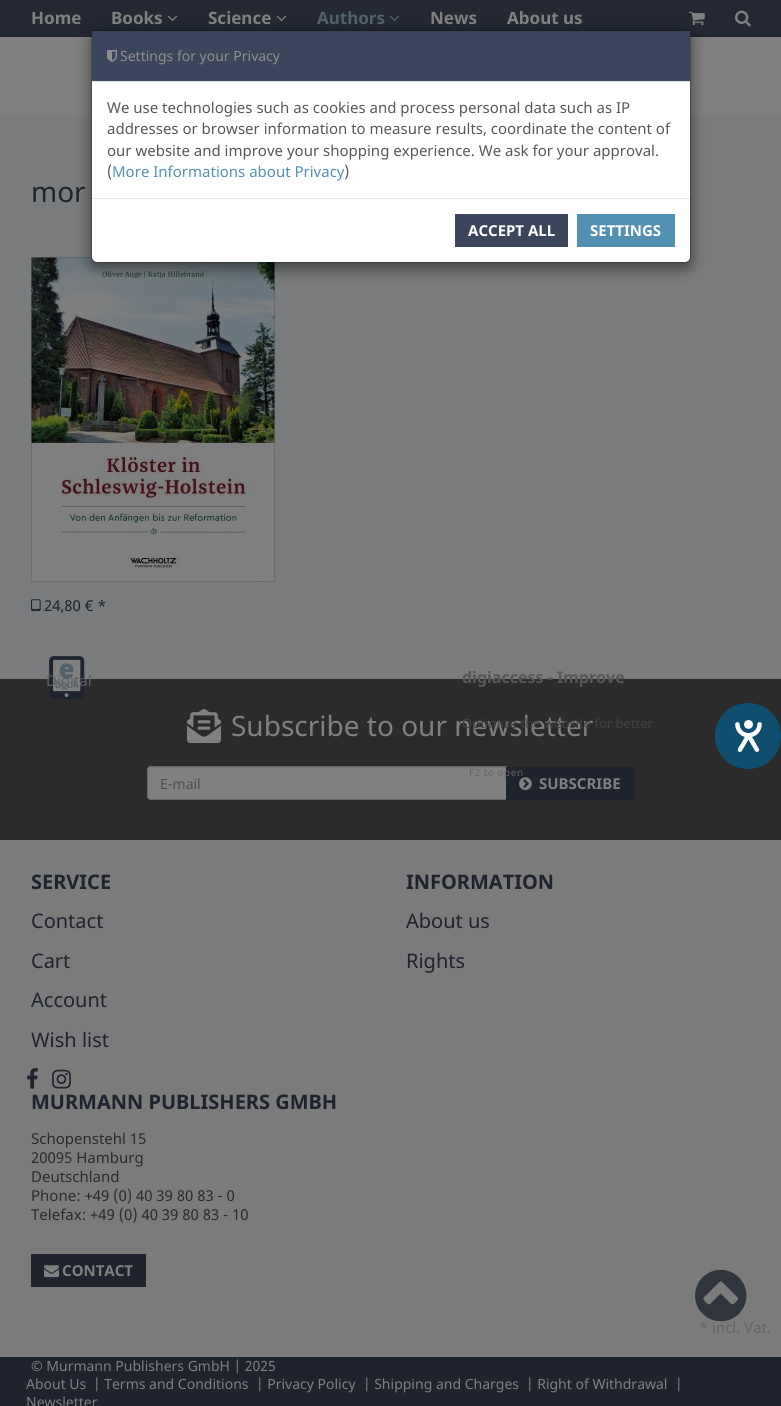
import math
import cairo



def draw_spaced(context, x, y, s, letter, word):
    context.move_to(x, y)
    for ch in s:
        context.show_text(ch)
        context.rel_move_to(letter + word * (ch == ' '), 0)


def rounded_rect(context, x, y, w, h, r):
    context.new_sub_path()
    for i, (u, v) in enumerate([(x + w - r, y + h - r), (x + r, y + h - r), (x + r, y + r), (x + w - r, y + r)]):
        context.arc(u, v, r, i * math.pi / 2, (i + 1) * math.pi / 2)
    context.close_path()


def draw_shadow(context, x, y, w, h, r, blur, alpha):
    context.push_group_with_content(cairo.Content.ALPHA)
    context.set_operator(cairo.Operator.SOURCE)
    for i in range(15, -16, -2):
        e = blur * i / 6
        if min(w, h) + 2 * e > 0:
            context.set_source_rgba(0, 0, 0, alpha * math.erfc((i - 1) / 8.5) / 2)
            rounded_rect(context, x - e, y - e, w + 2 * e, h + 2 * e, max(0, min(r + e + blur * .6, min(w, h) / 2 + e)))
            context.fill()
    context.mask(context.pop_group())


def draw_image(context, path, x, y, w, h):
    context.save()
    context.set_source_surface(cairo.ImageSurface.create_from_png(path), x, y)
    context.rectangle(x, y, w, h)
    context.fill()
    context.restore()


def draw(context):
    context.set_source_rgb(128 / 255, 128 / 255, 128 / 255)
    context.paint()
    context.set_source_rgb(35 / 255, 40 / 255, 50 / 255)
    context.rectangle(0, 0, 781, 36)
    context.fill()
    context.set_source_rgb(30 / 255, 35 / 255, 46 / 255)
    context.rectangle(0, 36, 781, 1)
    context.fill()
    draw_image(context, "images/1.png", 167, 15, 11, 7)
    draw_image(context, "images/2.png", 276, 15, 11, 7)
    draw_image(context, "images/3.png", 389, 15, 11, 7)
    draw_image(context, "images/4.png", 689, 11, 16, 15)
    draw_image(context, "images/5.png", 735, 10, 16, 17)
    context.set_source_rgb(121 / 255, 123 / 255, 124 / 255)
    context.rectangle(0, 115, 781, 564)
    context.fill()
    draw_image(context, "images/8.png", 31, 257, 244, 325)
    context.set_source_rgb(0, 0, 0)
    draw_shadow(context, 91, 35, 600, 233, 6, 7.5, 0.5)
    context.set_source_rgb(1, 1, 1)
    rounded_rect(context, 92, 31, 598, 231, 5)
    context.fill()
    rounded_rect(context, 91.5, 30.5, 599, 232, 5.5)
    context.set_source_rgba(0, 0, 0, 0.2)
    context.set_line_width(1)
    context.stroke()
    context.set_source_rgb(59 / 255, 70 / 255, 92 / 255)
    context.rectangle(92, 31, 598, 50)
    context.fill()
    context.set_source_rgb(229 / 255, 229 / 255, 229 / 255)
    context.rectangle(92, 81, 598, 1)
    context.fill()
    draw_image(context, "images/6.png", 107, 50, 10, 12)
    context.rectangle(92, 198, 598, 1)
    context.fill()
    context.set_source_rgb(59 / 255, 70 / 255, 92 / 255)
    context.rectangle(455, 214, 113, 33)
    context.fill()
    context.set_source_rgb(82 / 255, 145 / 255, 178 / 255)
    context.rectangle(577, 214, 98, 33)
    context.fill()
    draw_image(context, "images/7.png", 31, 599, 10, 12)
    context.set_source_rgb(43 / 255, 43 / 255, 43 / 255)
    context.rectangle(0, 679, 781, 161)
    context.fill()
    draw_image(context, "images/9.png", 49, 656, 36, 43)
    draw_image(context, "images/10.png", 187, 709, 34, 34)
    context.set_source_rgb(128 / 255, 128 / 255, 128 / 255)
    context.new_path()
    context.move_to(151, 766)
    context.line_to(507, 766)
    context.line_to(507, 800)
    context.line_to(151, 800)
    context.curve_to(149, 800, 147, 798, 147, 796)
    context.line_to(147, 770)
    context.curve_to(147, 768, 149, 766, 151, 766)
    context.close_path()
    context.fill()
    context.set_source_rgb(118 / 255, 118 / 255, 118 / 255)
    context.new_path()
    context.move_to(151, 768)
    context.line_to(506, 768)
    context.line_to(506, 767)
    context.line_to(151, 767)
    context.curve_to(149, 767, 148, 768, 148, 770)
    context.line_to(148, 771)
    context.curve_to(148, 769, 149, 768, 151, 768)
    context.close_path()
    context.fill()
    context.new_path()
    context.move_to(151, 766.5)
    context.line_to(506.5, 766.5)
    context.line_to(506.5, 799.5)
    context.line_to(151, 799.5)
    context.curve_to(149, 799.5, 147.5, 798, 147.5, 796)
    context.line_to(147.5, 770)
    context.curve_to(147.5, 768, 149, 766.5, 151, 766.5)
    context.close_path()
    context.set_source_rgb(102 / 255, 102 / 255, 102 / 255)
    context.stroke()
    context.set_source_rgb(30 / 255, 35 / 255, 46 / 255)
    context.rectangle(506, 767, 128, 33)
    context.fill()
    draw_image(context, "images/11.png", 519, 777, 13, 14)
    context.set_source_rgb(123 / 255, 123 / 255, 123 / 255)
    context.rectangle(0, 840, 781, 517)
    context.fill()
    draw_image(context, "images/12.png", 27, 1068, 11, 21)
    draw_image(context, "images/13.png", 52, 1069, 19, 20)
    context.set_source_rgb(30 / 255, 35 / 255, 46 / 255)
    context.rectangle(31, 1254, 115, 33)
    context.fill()
    draw_image(context, "images/14.png", 44, 1265, 15, 13)
    context.rectangle(0, 1357, 781, 49)
    context.fill()
    context.set_source_rgb(16 / 255, 78 / 255, 112 / 255)
    context.arc(748, 736, 33, 0, 2 * math.pi)
    context.fill()
    draw_image(context, "images/16.png", 735, 720, 27, 32)
    context.select_font_face("Noto Sans", cairo.FontSlant.NORMAL, cairo.FontWeight.BOLD)
    context.set_font_size(17)
    context.set_source_rgb(128 / 255, 128 / 255, 128 / 255)
    context.move_to(31, 24)
    context.show_text("Home")
    context.move_to(111, 24)
    context.show_text("Books")
    context.move_to(208, 24)
    context.show_text("Science")
    context.set_source_rgb(80 / 255, 97 / 255, 106 / 255)
    context.move_to(317, 24)
    context.show_text("Authors")
    context.set_source_rgb(128 / 255, 128 / 255, 128 / 255)
    context.move_to(430, 24)
    context.show_text("News")
    context.move_to(507, 24)
    context.show_text("About us")
    context.select_font_face("Noto Sans")
    context.set_font_size(14)
    context.set_source_rgb(142 / 255, 142 / 255, 142 / 255)
    context.move_to(120, 61)
    context.show_text("Settings for your Privacy")
    context.set_font_size(15)
    context.set_source_rgb(86 / 255, 87 / 255, 87 / 255)
    context.move_to(107, 113)
    context.show_text("We use technologies such as cookies and process personal data such as IP")
    context.move_to(107, 134)
    context.show_text("addresses or browser information to measure results, coordinate the content of")
    context.move_to(107, 156)
    context.show_text("our website and improve your shopping experience. We ask for your approval.")
    context.move_to(107, 177)
    context.show_text("(")
    context.set_source_rgb(82 / 255, 145 / 255, 178 / 255)
    context.move_to(112, 177)
    context.show_text("More Informations about Privacy")
    context.set_source_rgb(86 / 255, 87 / 255, 87 / 255)
    context.move_to(344, 177)
    context.show_text(")")
    context.select_font_face("Noto Sans", cairo.FontSlant.NORMAL, cairo.FontWeight.BOLD)
    context.set_source_rgb(1, 1, 1)
    context.move_to(468, 236)
    context.show_text("ACCEPT ALL")
    context.move_to(590, 236)
    context.show_text("SETTINGS")
    context.select_font_face("Noto Sans")
    context.set_font_size(28)
    context.set_source_rgb(30 / 255, 35 / 255, 46 / 255)
    context.move_to(31, 202)
    context.show_text("mor")
    context.set_font_size(15)
    context.move_to(44, 611)
    context.show_text("24,80 € *")
    context.set_source_rgb(93 / 255, 97 / 255, 99 / 255)
    context.move_to(46, 686)
    context.show_text("Digital")
    context.set_font_size(28)
    context.set_source_rgb(128 / 255, 128 / 255, 128 / 255)
    context.move_to(231, 736)
    context.show_text("Subscribe to our newsletter")
    context.set_font_size(14)
    context.set_source_rgb(77 / 255, 77 / 255, 77 / 255)
    context.move_to(160, 789)
    context.show_text("E-mail")
    context.select_font_face("Noto Sans", cairo.FontSlant.NORMAL, cairo.FontWeight.BOLD)
    context.set_font_size(15)
    context.set_source_rgb(128 / 255, 128 / 255, 128 / 255)
    context.move_to(539, 789)
    context.show_text("SUBSCRIBE")
    context.set_font_size(20)
    context.set_source_rgb(30 / 255, 35 / 255, 46 / 255)
    context.move_to(31, 889)
    context.show_text("SERVICE")
    context.select_font_face("Noto Sans")
    context.move_to(31, 928)
    context.show_text("Contact")
    context.move_to(31, 968)
    context.show_text("Cart")
    context.move_to(31, 1007)
    context.show_text("Account")
    context.move_to(31, 1047)
    context.show_text("Wish list")
    context.select_font_face("Noto Sans", cairo.FontSlant.NORMAL, cairo.FontWeight.BOLD)
    context.move_to(406, 889)
    context.show_text("INFORMATION")
    context.select_font_face("Noto Sans")
    context.move_to(406, 928)
    context.show_text("About us")
    context.move_to(406, 968)
    context.show_text("Rights")
    context.select_font_face("Noto Sans", cairo.FontSlant.NORMAL, cairo.FontWeight.BOLD)
    context.move_to(31, 1109)
    context.show_text("MURMANN PUBLISHERS GMBH")
    context.select_font_face("Noto Sans")
    context.set_font_size(15)
    context.set_source_rgb(43 / 255, 43 / 255, 43 / 255)
    context.move_to(31, 1144)
    context.show_text("Schopenstehl 15")
    context.move_to(31, 1163)
    context.show_text("20095 Hamburg")
    context.move_to(31, 1182)
    context.show_text("Deutschland")
    context.move_to(31, 1201)
    context.show_text("Phone: +49 (0) 40 39 80 83 - 0")
    context.move_to(31, 1220)
    context.show_text("Telefax: +49 (0) 40 39 80 83 - 10")
    context.select_font_face("Noto Sans", cairo.FontSlant.NORMAL, cairo.FontWeight.BOLD)
    context.set_source_rgb(128 / 255, 128 / 255, 128 / 255)
    context.move_to(62, 1276)
    context.show_text("CONTACT")
    context.select_font_face("Noto Sans")
    context.set_source_rgb(99 / 255, 99 / 255, 99 / 255)
    context.move_to(699, 1333)
    context.show_text("* incl. Vat.")
    draw_image(context, "images/15.png", 695, 1269, 52, 53)
    context.set_font_size(14)
    context.set_source_rgb(128 / 255, 128 / 255, 128 / 255)
    context.move_to(31, 1371)
    context.show_text("© Murmann Publishers GmbH | 2025")
    context.move_to(26, 1389)
    context.show_text("About Us")
    context.move_to(93, 1389)
    context.show_text("| Terms and Conditions")
    context.move_to(256, 1389)
    context.show_text("| Privacy Policy")
    context.move_to(363, 1389)
    context.show_text("| Shipping and Charges")
    context.move_to(526, 1389)
    context.show_text("| Right of Withdrawal")
    context.move_to(675, 1389)
    context.show_text("|")
    context.move_to(26, 1407)
    context.show_text("Newsletter")
    context.select_font_face("Noto Sans", cairo.FontSlant.NORMAL, cairo.FontWeight.BOLD)
    context.set_font_size(16)
    context.set_source_rgb(86 / 255, 87 / 255, 87 / 255)
    context.move_to(462, 683)
    context.show_text("digiaccess - Improve")
    context.select_font_face("Noto Sans")
    context.set_font_size(13)
    context.set_source_rgb(65 / 255, 65 / 255, 65 / 255)
    context.move_to(462, 728)
    context.show_text("Optimize the website for better")
    context.set_font_size(10)
    context.set_source_rgb(99 / 255, 99 / 255, 99 / 255)
    draw_spaced(context, 469, 776, "F2 to open", 0.5, 0)


surface = cairo.ImageSurface(cairo.Format.RGB24, 781, 1406)
context = cairo.Context(surface)
options = cairo.FontOptions()
options.set_hint_metrics(cairo.HintMetrics.OFF)
options.set_hint_style(cairo.HintStyle.NONE)
context.set_font_options(options)
context.set_miter_limit(4)
draw(context)
surface.write_to_png("out.png")
